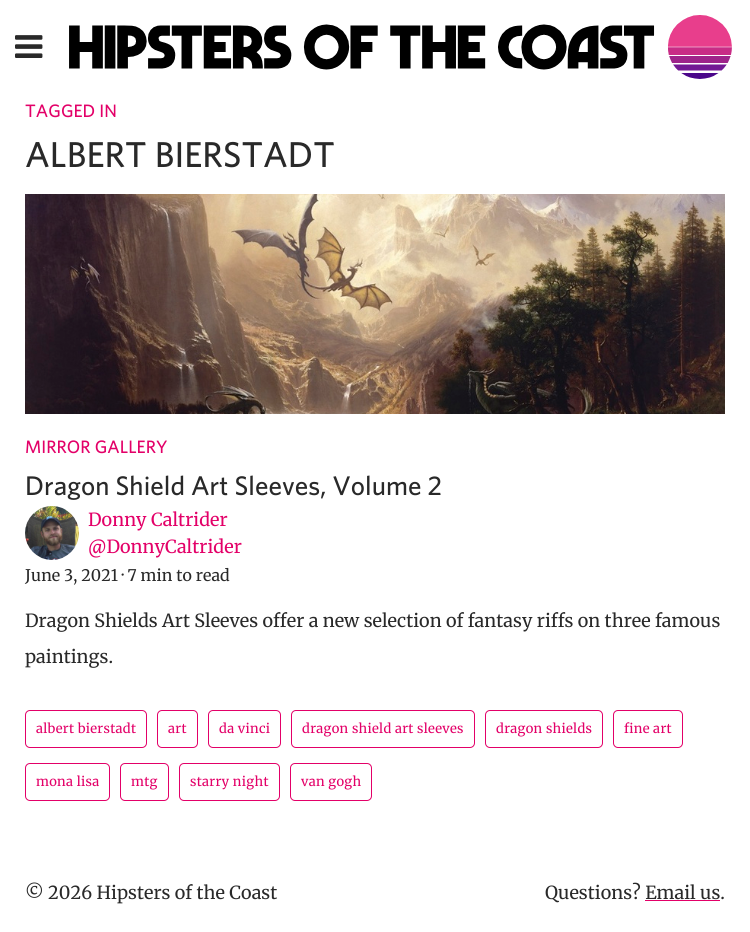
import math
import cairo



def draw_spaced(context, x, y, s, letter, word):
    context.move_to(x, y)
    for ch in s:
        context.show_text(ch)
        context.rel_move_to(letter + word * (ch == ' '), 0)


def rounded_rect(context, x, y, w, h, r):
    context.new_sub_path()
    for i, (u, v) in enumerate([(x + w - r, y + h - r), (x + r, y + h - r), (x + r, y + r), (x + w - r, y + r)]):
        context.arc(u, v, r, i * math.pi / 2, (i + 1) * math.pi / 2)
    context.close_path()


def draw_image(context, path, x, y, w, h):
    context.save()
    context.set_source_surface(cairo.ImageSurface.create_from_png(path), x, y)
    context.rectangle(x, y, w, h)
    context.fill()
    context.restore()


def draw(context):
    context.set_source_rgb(1, 1, 1)
    context.paint()
    draw_image(context, "images/1.png", 15, 35, 28, 23)
    draw_image(context, "images/2.png", 69, 15, 663, 64)
    draw_image(context, "images/3.png", 25, 194, 700, 220)
    draw_image(context, "images/4.png", 25, 506, 54, 54)
    rounded_rect(context, 25.5, 710.5, 121, 37, 4.5)
    context.set_source_rgb(227 / 255, 0, 104 / 255)
    context.set_line_width(1)
    context.stroke()
    rounded_rect(context, 157.5, 710.5, 40, 37, 4.5)
    context.stroke()
    rounded_rect(context, 208.5, 710.5, 72, 37, 4.5)
    context.stroke()
    rounded_rect(context, 291.5, 710.5, 183, 37, 4.5)
    context.stroke()
    rounded_rect(context, 485.5, 710.5, 117, 37, 4.5)
    context.stroke()
    rounded_rect(context, 613.5, 710.5, 69, 37, 4.5)
    context.stroke()
    rounded_rect(context, 25.5, 763.5, 84, 37, 4.5)
    context.stroke()
    rounded_rect(context, 120.5, 763.5, 48, 37, 4.5)
    context.stroke()
    rounded_rect(context, 179.5, 763.5, 100, 37, 4.5)
    context.stroke()
    rounded_rect(context, 290.5, 763.5, 81, 37, 4.5)
    context.stroke()
    context.select_font_face("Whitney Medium")
    context.set_font_size(18)
    draw_spaced(context, 25, 117, "TAGGED IN", 0.05, 0)
    context.set_font_size(36)
    context.set_source_rgb(41 / 255, 41 / 255, 41 / 255)
    draw_spaced(context, 25, 167, "ALBERT BIERSTADT", 0.05, 0)
    context.set_font_size(18)
    context.set_source_rgb(227 / 255, 0, 104 / 255)
    draw_spaced(context, 25, 453, "MIRROR GALLERY", 0.05, 0)
    context.set_font_size(27)
    context.set_source_rgb(41 / 255, 41 / 255, 41 / 255)
    draw_spaced(context, 25, 495, "Dragon Shield Art Sleeves, Volume 2", 0.05, 0)
    context.select_font_face("Merriweather")
    context.set_font_size(18)
    context.set_source_rgb(227 / 255, 0, 104 / 255)
    draw_spaced(context, 88, 526, "Donny Caltrider", 0.05, 0)
    draw_spaced(context, 88, 553, "@DonnyCaltrider", 0.05, 0)
    context.set_font_size(16)
    context.set_source_rgb(41 / 255, 41 / 255, 41 / 255)
    draw_spaced(context, 25, 581, "June 3, 2021 · 7 min to read", 0.05, 0)
    context.set_font_size(18)
    draw_spaced(context, 25, 627, "Dragon Shields Art Sleeves offer a new selection of fantasy riffs on three famous", 0.05, 0)
    draw_spaced(context, 25, 663, "paintings.", 0.05, 0)
    context.set_font_size(13)
    context.set_source_rgb(227 / 255, 0, 104 / 255)
    draw_spaced(context, 36, 733, "albert bierstadt", 0.3, 0)
    draw_spaced(context, 168, 733, "art", 0.3, 0)
    draw_spaced(context, 219, 733, "da vinci", 0.3, 0)
    draw_spaced(context, 302, 733, "dragon shield art sleeves", 0.3, 0)
    draw_spaced(context, 496, 733, "dragon shields", 0.3, 0)
    draw_spaced(context, 624, 733, "fine art", 0.3, 0)
    draw_spaced(context, 36, 786, "mona lisa", 0.3, 0)
    draw_spaced(context, 131, 786, "mtg", 0.3, 0)
    draw_spaced(context, 190, 786, "starry night", 0.3, 0)
    draw_spaced(context, 301, 786, "van gogh", 0.3, 0)
    context.set_font_size(18)
    context.set_source_rgb(41 / 255, 41 / 255, 41 / 255)
    draw_spaced(context, 25, 899, "© 2026 Hipsters of the Coast", 0.05, 0)
    draw_spaced(context, 545, 899, "Questions? Email us.", 0.05, 0)
    context.set_source_rgb(227 / 255, 0, 104 / 255)
    context.rectangle(645, 900, 75, 1)
    context.fill()


surface = cairo.ImageSurface(cairo.Format.RGB24, 750, 932)
context = cairo.Context(surface)
options = cairo.FontOptions()
options.set_hint_metrics(cairo.HintMetrics.OFF)
options.set_hint_style(cairo.HintStyle.NONE)
context.set_font_options(options)
context.set_miter_limit(4)
draw(context)
surface.write_to_png("out.png")
